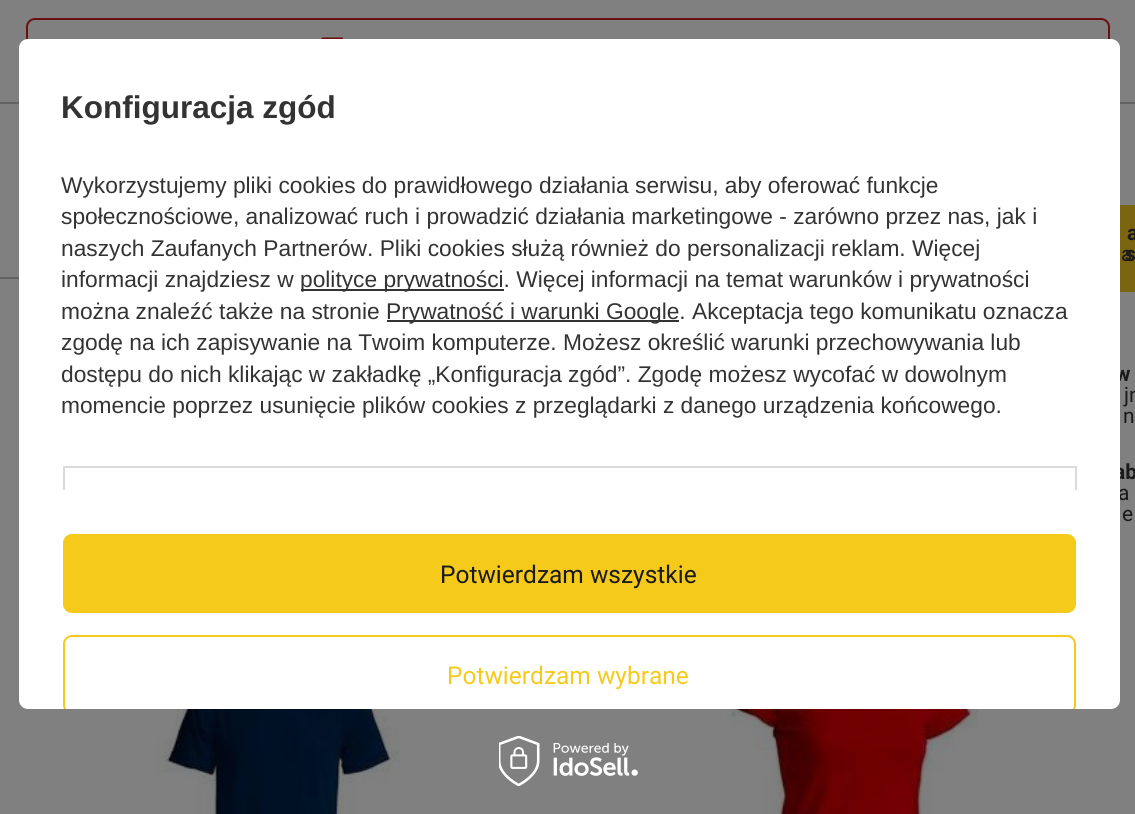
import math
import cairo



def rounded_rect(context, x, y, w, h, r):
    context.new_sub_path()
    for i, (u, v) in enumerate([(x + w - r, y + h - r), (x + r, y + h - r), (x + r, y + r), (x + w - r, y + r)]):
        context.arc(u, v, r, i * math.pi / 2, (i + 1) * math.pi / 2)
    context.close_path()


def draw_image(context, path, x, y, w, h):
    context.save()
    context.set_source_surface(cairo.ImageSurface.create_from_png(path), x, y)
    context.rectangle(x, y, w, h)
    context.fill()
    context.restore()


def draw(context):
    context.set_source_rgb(128 / 255, 128 / 255, 128 / 255)
    context.paint()
    draw_image(context, "images/1.png", 499, 736, 139, 50)
    context.set_source_rgb(98 / 255, 100 / 255, 100 / 255)
    context.rectangle(0, 277, 19, 2)
    context.fill()
    rounded_rect(context, 27, 19, 1082, 64, 8)
    context.set_source_rgb(108 / 255, 15 / 255, 15 / 255)
    context.stroke()
    draw_image(context, "images/2.png", 321, 37, 23, 2)
    context.set_source_rgb(98 / 255, 100 / 255, 100 / 255)
    context.rectangle(0, 102, 1135, 2)
    context.fill()
    context.set_source_rgb(123 / 255, 101 / 255, 14 / 255)
    context.rectangle(1120, 205, 15, 87)
    context.fill()
    draw_image(context, "images/3.png", 156, 709, 244, 105)
    draw_image(context, "images/4.png", 720, 709, 258, 105)
    context.select_font_face("Roboto", cairo.FontSlant.NORMAL, cairo.FontWeight.BOLD)
    context.set_font_size(21)
    context.set_source_rgb(26 / 255, 26 / 255, 26 / 255)
    context.move_to(1127, 240)
    context.show_text("a")
    context.select_font_face("Roboto")
    context.move_to(1121, 261)
    context.show_text("a")
    context.select_font_face("Roboto", cairo.FontSlant.NORMAL, cairo.FontWeight.BOLD)
    context.move_to(1125, 261)
    context.show_text("s")
    context.move_to(1115, 381)
    context.show_text("w")
    context.select_font_face("Roboto")
    context.move_to(1124, 402)
    context.show_text("jn")
    context.move_to(1123, 423)
    context.show_text("n")
    context.select_font_face("Roboto", cairo.FontSlant.NORMAL, cairo.FontWeight.BOLD)
    context.move_to(1114, 479)
    context.show_text("ab")
    context.select_font_face("Roboto")
    context.move_to(1118, 500)
    context.show_text("a")
    context.set_source_rgb(1, 1, 1)
    rounded_rect(context, 19, 39, 1101, 670, 9)
    context.fill()
    context.select_font_face("Liberation Sans")
    context.set_font_size(22.75)
    context.set_source_rgb(51 / 255, 51 / 255, 51 / 255)
    context.move_to(61, 413)
    context.show_text("momencie poprzez usunięcie plików cookies z przeglądarki z danego urządzenia końcowego.")
    context.move_to(61, 382)
    context.show_text("dostępu do nich klikając w zakładkę „Konfiguracja zgód”. Zgodę możesz wycofać w dowolnym")
    context.move_to(61, 350)
    context.show_text("zgodę na ich zapisywanie na Twoim komputerze. Możesz określić warunki przechowywania lub")
    context.rectangle(387, 320, 292, 2)
    context.fill()
    context.move_to(386, 319)
    context.show_text("Prywatność i warunki Google. Akceptacja tego komunikatu oznacza")
    context.move_to(61, 319)
    context.show_text("można znaleźć także na stronie")
    context.rectangle(301, 289, 203, 2)
    context.fill()
    context.move_to(300, 287)
    context.show_text("polityce prywatności. Więcej informacji na temat warunków i prywatności")
    context.move_to(61, 287)
    context.show_text("informacji znajdziesz w")
    context.move_to(61, 256)
    context.show_text("naszych Zaufanych Partnerów. Pliki cookies służą również do personalizacji reklam. Więcej")
    context.move_to(61, 224)
    context.show_text("społecznościowe, analizować ruch i prowadzić działania marketingowe - zarówno przez nas, jak i")
    context.move_to(61, 193)
    context.show_text("Wykorzystujemy pliki cookies do prawidłowego działania serwisu, aby oferować funkcje")
    context.select_font_face("Liberation Sans", cairo.FontSlant.NORMAL, cairo.FontWeight.BOLD)
    context.set_font_size(31.5)
    context.move_to(61, 118)
    context.show_text("Konfiguracja zgód")
    context.set_source_rgb(219 / 255, 219 / 255, 219 / 255)
    context.rectangle(63, 466, 1013, 2)
    context.fill()
    context.rectangle(63, 466, 2, 24)
    context.fill()
    context.rectangle(1075, 466, 2, 24)
    context.fill()
    context.set_source_rgb(245 / 255, 202 / 255, 27 / 255)
    rounded_rect(context, 64, 535, 1011, 77, 8)
    context.fill_preserve()
    context.stroke()
    context.select_font_face("Roboto")
    context.set_font_size(24.5)
    context.set_source_rgb(26 / 255, 26 / 255, 26 / 255)
    context.move_to(440, 583)
    context.show_text("Potwierdzam wszystkie")
    context.save()
    context.rectangle(19, 39, 1101, 670)
    context.clip()
    rounded_rect(context, 64, 636, 1011, 77, 8)
    context.set_source_rgb(245 / 255, 202 / 255, 27 / 255)
    context.stroke()
    context.restore()
    context.set_source_rgb(245 / 255, 202 / 255, 27 / 255)
    context.move_to(447, 684)
    context.show_text("Potwierdzam wybrane")
    context.set_font_size(21)
    context.set_source_rgb(26 / 255, 26 / 255, 26 / 255)
    context.move_to(1122, 521)
    context.show_text("e")


surface = cairo.ImageSurface(cairo.Format.RGB24, 1135, 814)
context = cairo.Context(surface)
options = cairo.FontOptions()
options.set_hint_metrics(cairo.HintMetrics.OFF)
options.set_hint_style(cairo.HintStyle.NONE)
context.set_font_options(options)
context.set_miter_limit(4)
draw(context)
surface.write_to_png("out.png")
